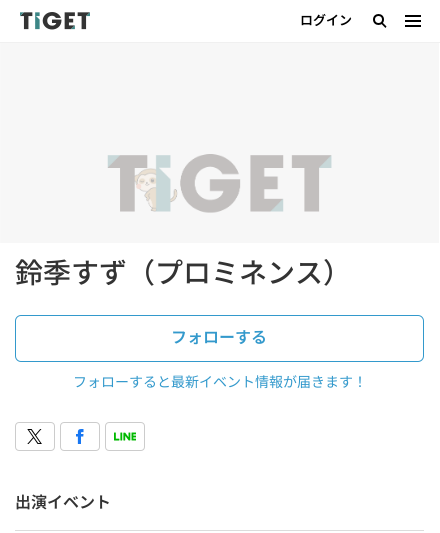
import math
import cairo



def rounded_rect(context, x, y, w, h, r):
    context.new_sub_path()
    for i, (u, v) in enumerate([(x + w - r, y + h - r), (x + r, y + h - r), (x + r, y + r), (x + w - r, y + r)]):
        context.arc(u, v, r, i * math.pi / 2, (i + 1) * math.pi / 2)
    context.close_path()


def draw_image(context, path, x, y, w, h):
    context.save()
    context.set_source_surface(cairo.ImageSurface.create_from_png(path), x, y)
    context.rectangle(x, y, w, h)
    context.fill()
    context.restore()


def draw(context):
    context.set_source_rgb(1, 1, 1)
    context.paint()
    context.set_source_rgb(240 / 255, 240 / 255, 240 / 255)
    context.rectangle(0, 42, 440, 1)
    context.fill()
    draw_image(context, "images/1.png", 20, 12, 70, 18)
    context.arc(378.5, 19.5, 4.5, 0, 2 * math.pi)
    context.set_source_rgb(0, 0, 0)
    context.stroke()
    context.new_path()
    context.move_to(382.5, 22.5)
    context.line_to(386.5, 26.5)
    context.line_to(385.5, 28)
    context.line_to(381, 23.5)
    context.close_path()
    context.fill()
    context.rectangle(405, 15, 16, 2)
    context.fill()
    context.rectangle(405, 20, 16, 2)
    context.fill()
    context.rectangle(405, 25, 16, 2)
    context.fill()
    draw_image(context, "images/2.png", 0, 43, 439, 200)
    rounded_rect(context, 15.5, 315.5, 408, 46, 5.5)
    context.set_source_rgb(51 / 255, 153 / 255, 204 / 255)
    context.set_line_width(1)
    context.stroke()
    rounded_rect(context, 15.5, 422.5, 39, 28, 3.5)
    context.set_source_rgb(204 / 255, 204 / 255, 204 / 255)
    context.stroke()
    draw_image(context, "images/3.png", 27, 429, 15, 15)
    rounded_rect(context, 60.5, 422.5, 39, 28, 3.5)
    context.stroke()
    draw_image(context, "images/4.png", 76, 429, 8, 15)
    rounded_rect(context, 105.5, 422.5, 39, 28, 3.5)
    context.stroke()
    draw_image(context, "images/5.png", 114, 432, 22, 9)
    context.set_source_rgb(220 / 255, 220 / 255, 220 / 255)
    context.rectangle(15, 530, 409, 1)
    context.fill()
    context.select_font_face("Noto Sans JP SemiBold")
    context.set_font_size(13)
    context.set_source_rgb(0, 0, 0)
    context.move_to(300, 25)
    context.show_text("ログイン")
    context.select_font_face("Noto Sans JP Medium")
    context.set_font_size(28)
    context.set_source_rgb(51 / 255, 51 / 255, 51 / 255)
    context.move_to(15, 283)
    context.show_text("鈴季すず（プロミネンス）")
    context.select_font_face("Noto Sans JP SemiBold")
    context.set_font_size(16)
    context.set_source_rgb(51 / 255, 153 / 255, 204 / 255)
    context.move_to(171, 343)
    context.show_text("フォローする")
    context.select_font_face("Noto Sans JP")
    context.set_font_size(14)
    context.move_to(73, 387)
    context.show_text("フォローすると最新イベント情報が届きます！")
    context.select_font_face("Noto Sans JP SemiBold")
    context.set_font_size(16)
    context.set_source_rgb(51 / 255, 51 / 255, 51 / 255)
    context.move_to(15, 508)
    context.show_text("出演イベント")


surface = cairo.ImageSurface(cairo.Format.RGB24, 440, 533)
context = cairo.Context(surface)
options = cairo.FontOptions()
options.set_hint_metrics(cairo.HintMetrics.OFF)
options.set_hint_style(cairo.HintStyle.NONE)
context.set_font_options(options)
context.set_miter_limit(4)
draw(context)
surface.write_to_png("out.png")
